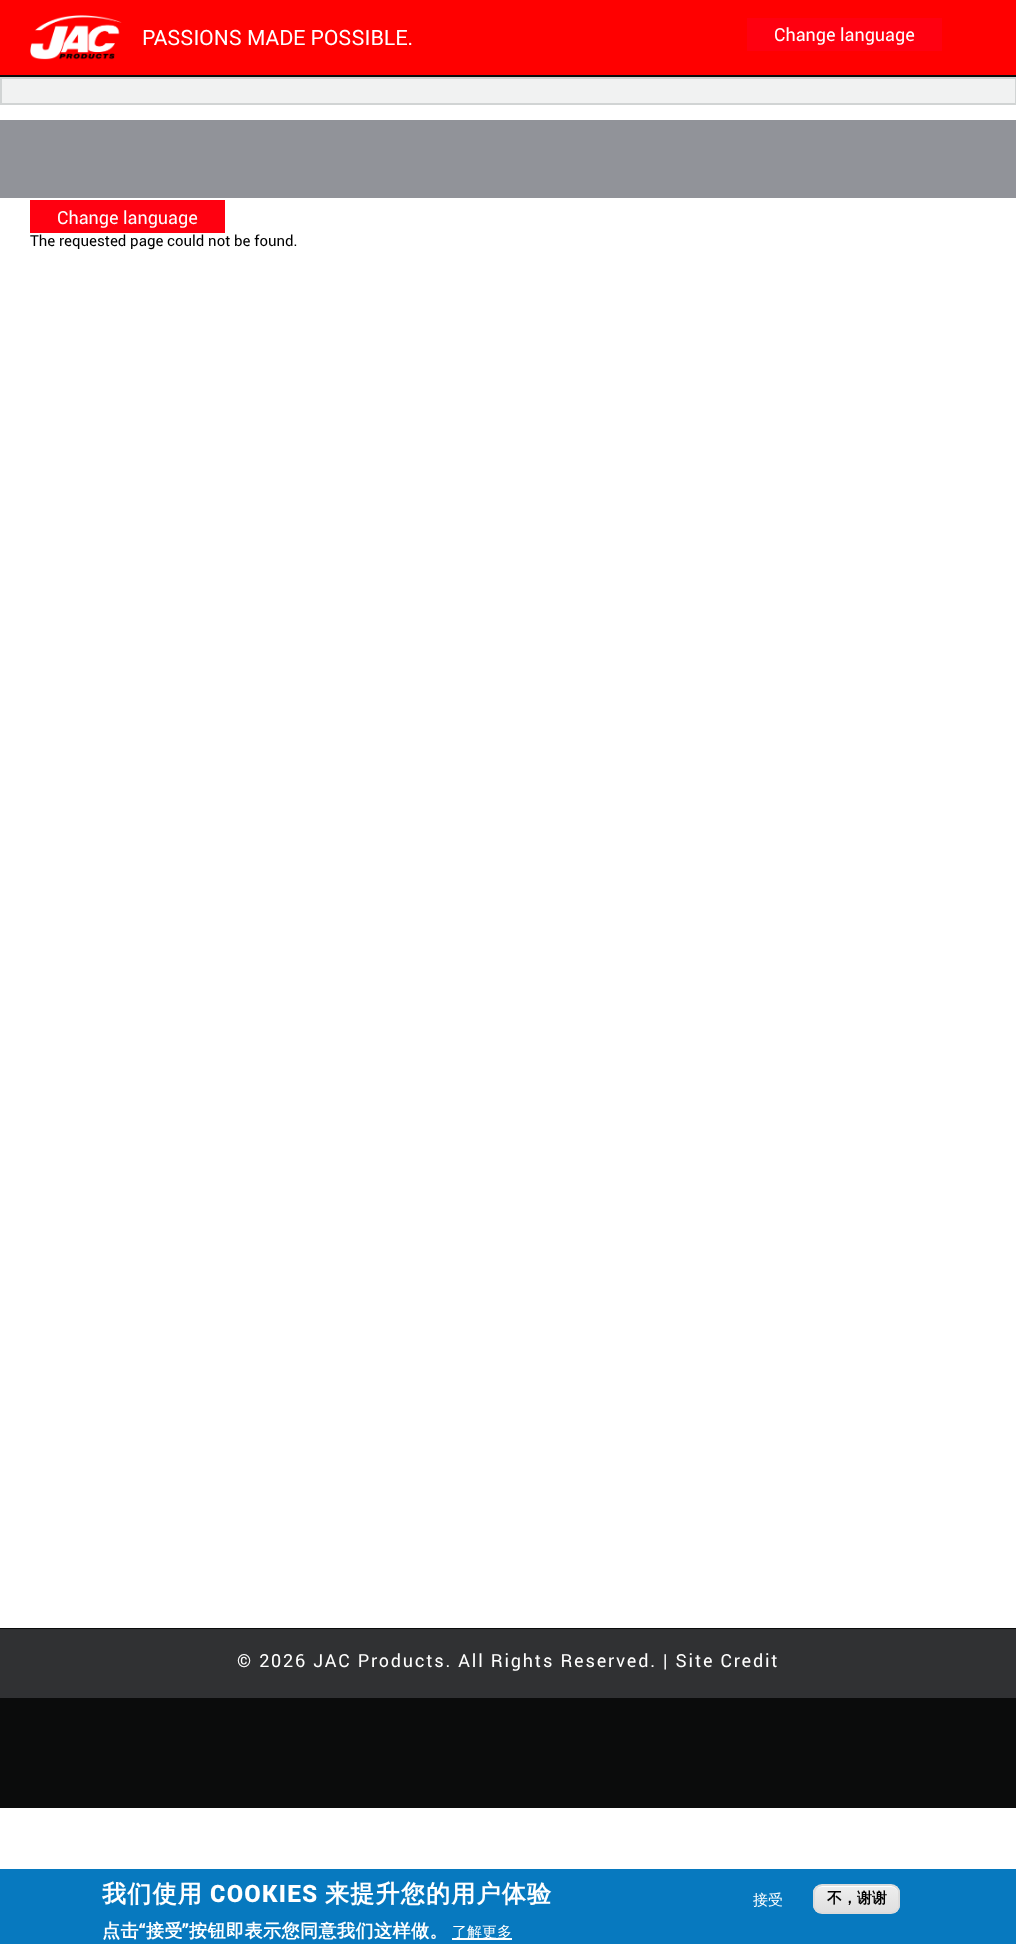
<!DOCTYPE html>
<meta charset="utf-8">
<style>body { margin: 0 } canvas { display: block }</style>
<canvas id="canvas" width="1016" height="1944"></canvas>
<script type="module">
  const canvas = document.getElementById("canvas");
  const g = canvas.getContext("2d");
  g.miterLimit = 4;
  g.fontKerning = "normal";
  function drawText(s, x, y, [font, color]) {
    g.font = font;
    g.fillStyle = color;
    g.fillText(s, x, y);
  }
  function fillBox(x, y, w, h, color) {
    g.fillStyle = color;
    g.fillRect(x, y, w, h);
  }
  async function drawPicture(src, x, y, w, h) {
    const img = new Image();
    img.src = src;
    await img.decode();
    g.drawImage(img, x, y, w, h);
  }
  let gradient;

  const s1 = ["21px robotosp", "#FFFFFF"];
  const s2 = ["18px robotosp", "#FFFFFF"];
  const s3 = ["15px robotosp", "#000000"];
  const s4 = ["bold 24px WenQuanYi Zen Hei", "#FFFFFF"];
  const s5 = ["900 24px Roboto", "#FFFFFF"];
  const s6 = ["bold 18px WenQuanYi Zen Hei", "#FFFFFF"];
  const s7 = ["900 18px Roboto", "#FFFFFF"];
  const s8 = ["500 15px WenQuanYi Zen Hei", "#FFFFFF"];
  const s9 = ["bold 15px WenQuanYi Zen Hei", "#000000"];

  fillBox(0, 0, 1016, 1944, "#FFFFFF");
  fillBox(0, 0, 1016, 75, "#FF0000");
  await drawPicture("pic1.png", 30, 15, 92, 45);
  drawText("PASSIONS MADE POSSIBLE.", 142, 45, s1);
  fillBox(0, 75, 1016, 2, "#0B0C0C");
  fillBox(747, 18, 195, 33, "#FF0010");
  drawText("Change language", 774, 41, s2);
  g.fillStyle = "#F1F2F2";
  g.beginPath();
  g.rect(1, 78, 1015, 26);
  g.fill();
  g.strokeStyle = "#D1D4D4";
  g.lineWidth = 2;
  g.stroke();
  fillBox(0, 120, 1016, 78, "#919399");
  fillBox(30, 200, 195, 33, "#FF0010");
  drawText("Change language", 57, 224, s2);
  drawText("The requested page could not be found.", 30, 246, s3);
  fillBox(0, 1628, 1016, 180, "#0B0C0C");
  fillBox(0, 1629, 1016, 69, "#303133");
  g.letterSpacing = "1.8px";
  drawText("© 2026 JAC Products. All Rights Reserved. | Site Credit", 237, 1667, s2);
  fillBox(0, 1869, 1016, 75, "#0779BF");
  g.letterSpacing = "1.25px";
  drawText("我们使用", 102, 1902, s4);
  drawText("COOKIES", 210, 1902, s5);
  drawText("来提升您的用户体验", 325, 1902, s4);
  g.letterSpacing = "0.5px";
  drawText("点击", 102, 1937, s6);
  drawText("“", 139, 1937, s7);
  drawText("接受", 146, 1937, s6);
  drawText("”", 182, 1937, s7);
  drawText("按钮即表示您同意我们这样做。", 189, 1937, s6);
  fillBox(452, 1938, 60, 2, "#FFFFFF");
  g.letterSpacing = "0px";
  drawText("了解更多", 452, 1937, s8);
  drawText("接受", 753, 1905, s8);
  g.save();
  g.beginPath();
  g.roundRect(813, 1884, 87, 30, 9);
  g.clip();
  gradient = g.createLinearGradient(857, 1886, 857, 1913);
  gradient.addColorStop(0.05, "#EDEDED");
  gradient.addColorStop(1, "#DFDFDF");
  g.fillStyle = gradient;
  g.fillRect(813, 1886, 87, 27);
  g.restore();
  g.beginPath();
  g.moveTo(822, 1887);
  g.lineTo(891, 1887);
  g.bezierCurveTo(895, 1887, 898, 1890, 898, 1894);
  g.lineTo(898, 1906);
  g.lineTo(897, 1910);
  g.bezierCurveTo(898, 1909, 899, 1907, 899, 1905);
  g.lineTo(899, 1894);
  g.bezierCurveTo(899, 1890, 895, 1886, 891, 1886);
  g.lineTo(823, 1886);
  g.bezierCurveTo(821, 1886, 819, 1887, 817, 1888);
  g.bezierCurveTo(819, 1888, 820, 1887, 822, 1887);
  g.closePath();
  g.fill();
  g.beginPath();
  g.roundRect(814, 1885, 85, 28, 8);
  g.strokeStyle = "#DCDCDC";
  g.stroke();
  drawText("不，谢谢", 827, 1903, s9);
</script>
